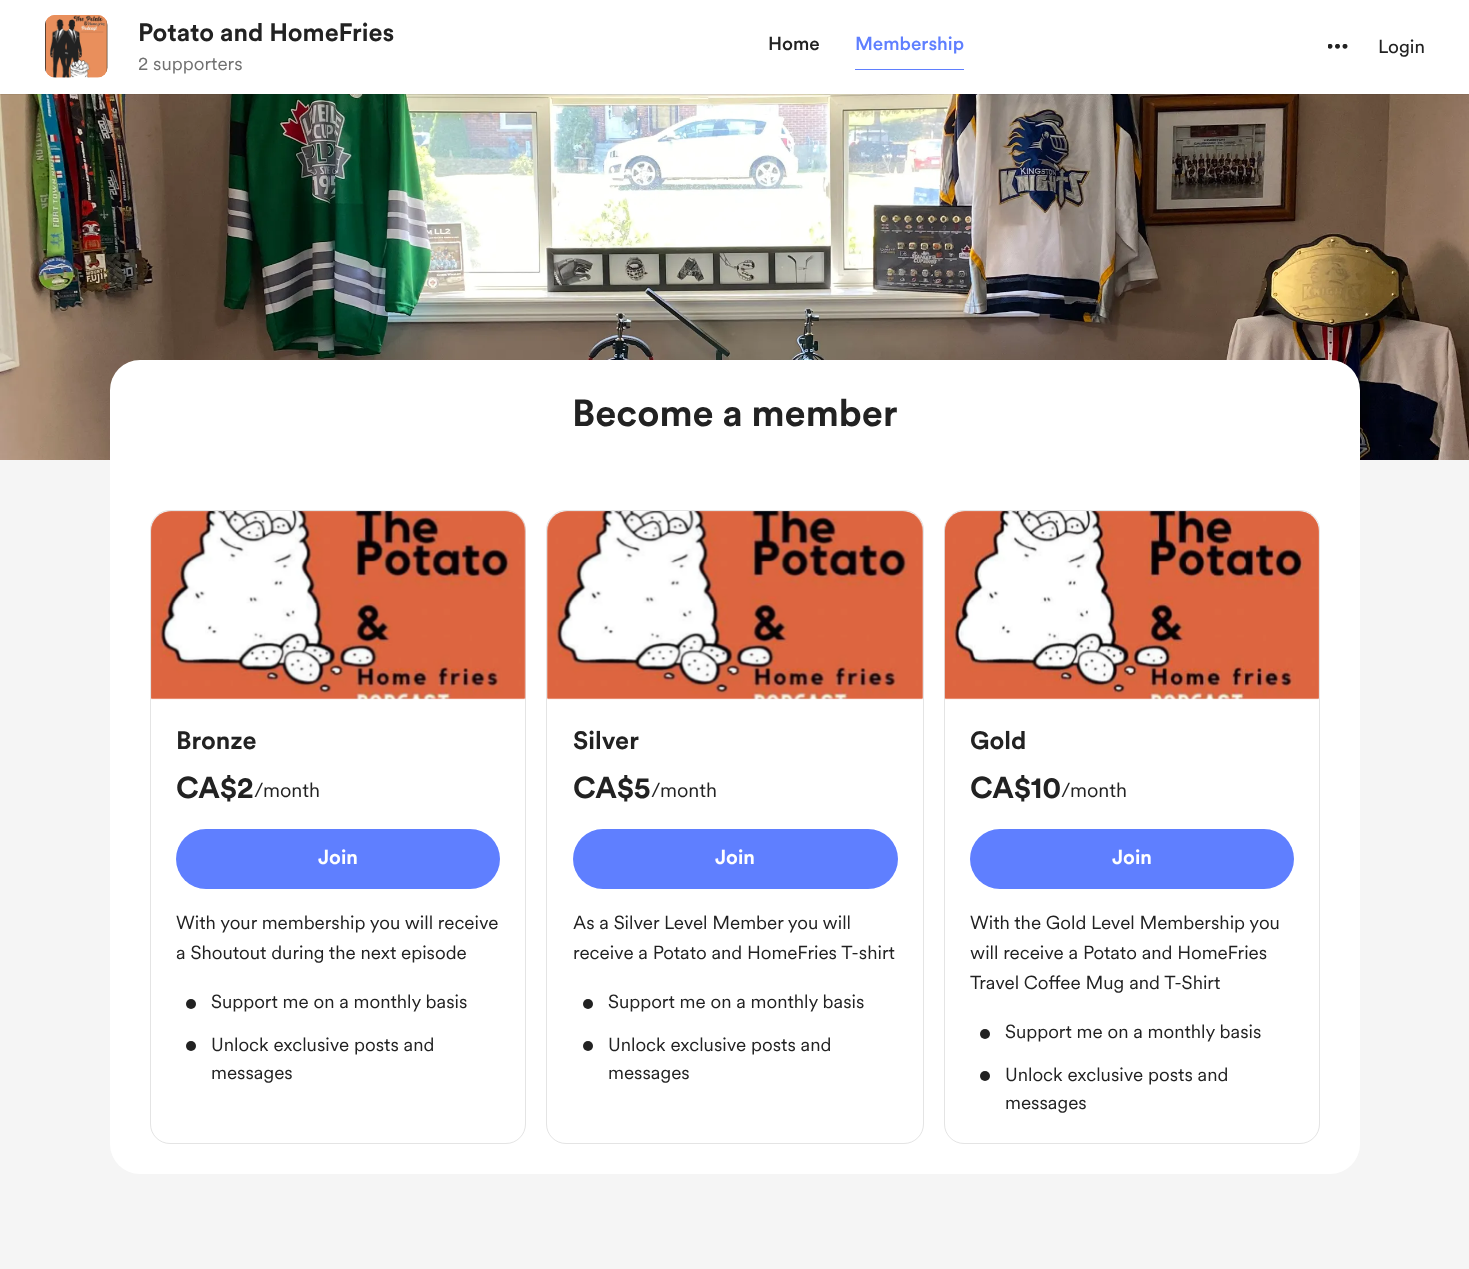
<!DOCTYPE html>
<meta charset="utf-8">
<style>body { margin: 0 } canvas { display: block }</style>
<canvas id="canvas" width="1469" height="1269"></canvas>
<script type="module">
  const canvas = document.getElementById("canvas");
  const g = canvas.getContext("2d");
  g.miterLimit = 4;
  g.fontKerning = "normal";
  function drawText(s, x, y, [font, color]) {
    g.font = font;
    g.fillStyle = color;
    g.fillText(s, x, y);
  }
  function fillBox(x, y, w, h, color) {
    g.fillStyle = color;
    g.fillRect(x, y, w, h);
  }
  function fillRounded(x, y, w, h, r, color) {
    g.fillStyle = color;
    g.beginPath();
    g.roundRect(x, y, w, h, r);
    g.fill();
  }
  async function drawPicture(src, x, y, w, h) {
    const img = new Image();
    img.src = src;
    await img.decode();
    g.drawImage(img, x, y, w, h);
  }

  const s1 = ["bold 25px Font", "#222222"];
  const s2 = ["18.75px Font", "#717171"];
  const s3 = ["500 18.75px Font", "#222222"];
  const s4 = ["500 18.75px Font", "#5F7FFF"];
  const s5 = ["18.75px 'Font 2'", "#222222"];
  const s6 = ["bold 37.5px Font", "#222222"];
  const s7 = ["bold 30px Font", "#222222"];
  const s8 = ["20px Font", "#222222"];
  const s9 = ["bold 20px Font", "#FFFFFF"];
  const s10 = ["18.75px Font", "#222222"];

  fillBox(0, 0, 1469, 1269, "#F5F5F5");
  await drawPicture("pic4.png", 0, 94, 1469, 366);
  g.fillStyle = "rgba(0, 0, 0, 0.06)";
  g.filter = "blur(0.5px)";
  g.beginPath();
  g.rect(0, 1, 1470, 94);
  g.fill();
  g.filter = "none";
  fillBox(0, 0, 1469, 94, "#FFFFFF");
  await drawPicture("pic1.png", 45, 15, 63, 63);
  await drawPicture("pic2.png", 45, 15, 63, 63);
  drawText("Potato and HomeFries", 138, 41, s1);
  drawText("2 supporters", 138, 70, s2);
  drawText("Home", 768, 50, s3);
  drawText("Membership", 855, 50, s4);
  fillBox(855, 69, 109, 1, "#5F7FFF");
  await drawPicture("pic3.png", 1328, 44, 20, 5);
  drawText("Login", 1378, 53, s5);
  fillRounded(110, 360, 1250, 814, 30, "#FFFFFF");
  drawText("Become a member", 572, 426, s6);
  g.beginPath();
  g.roundRect(150.5, 510.5, 375, 633, 19.5);
  g.strokeStyle = "#E4E4E4";
  g.stroke();
  await drawPicture("pic5.png", 151, 511, 375, 188);
  await drawPicture("pic6.png", 151, 511, 375, 189);
  drawText("Bronze", 176, 749, s1);
  drawText("CA$2", 176, 798, s7);
  drawText("/month", 254, 797, s8);
  fillRounded(176, 829, 324, 60, 30, "#5F7FFF");
  drawText("Join", 318, 864, s9);
  drawText("With your membership you will receive", 176, 929, s10);
  drawText("a Shoutout during the next episode", 176, 959, s10);
  g.beginPath();
  g.arc(191, 1004, 5, 0, Math.PI * 2);
  g.fill();
  drawText("Support me on a monthly basis", 211, 1008, s10);
  g.beginPath();
  g.arc(191, 1046, 5, 0, Math.PI * 2);
  g.fill();
  drawText("Unlock exclusive posts and", 211, 1051, s10);
  drawText("messages", 211, 1079, s10);
  g.beginPath();
  g.roundRect(546.5, 510.5, 377, 633, 19.5);
  g.stroke();
  await drawPicture("pic7.png", 547, 511, 376, 188);
  await drawPicture("pic8.png", 547, 511, 376, 189);
  drawText("Silver", 573, 749, s1);
  drawText("CA$5", 573, 798, s7);
  drawText("/month", 651, 797, s8);
  fillRounded(573, 829, 325, 60, 30, "#5F7FFF");
  drawText("Join", 715, 864, s9);
  drawText("As a Silver Level Member you will", 573, 929, s10);
  drawText("receive a Potato and HomeFries T-shirt", 573, 959, s10);
  g.beginPath();
  g.arc(588, 1004, 5, 0, Math.PI * 2);
  g.fill();
  drawText("Support me on a monthly basis", 608, 1008, s10);
  g.beginPath();
  g.arc(588, 1046, 5, 0, Math.PI * 2);
  g.fill();
  drawText("Unlock exclusive posts and", 608, 1051, s10);
  drawText("messages", 608, 1079, s10);
  g.beginPath();
  g.roundRect(944.5, 510.5, 375, 633, 19.5);
  g.stroke();
  await drawPicture("pic9.png", 944, 511, 375, 188);
  await drawPicture("pic10.png", 945, 511, 374, 189);
  drawText("Gold", 970, 749, s1);
  drawText("CA$10", 970, 798, s7);
  drawText("/month", 1061, 797, s8);
  fillRounded(970, 829, 324, 60, 30, "#5F7FFF");
  drawText("Join", 1112, 864, s9);
  drawText("With the Gold Level Membership you", 970, 929, s10);
  drawText("will receive a Potato and HomeFries", 970, 959, s10);
  drawText("Travel Coffee Mug and T-Shirt", 970, 989, s10);
  g.beginPath();
  g.arc(985, 1034, 5, 0, Math.PI * 2);
  g.fill();
  drawText("Support me on a monthly basis", 1005, 1038, s10);
  g.beginPath();
  g.arc(985, 1076, 5, 0, Math.PI * 2);
  g.fill();
  drawText("Unlock exclusive posts and", 1005, 1081, s10);
  drawText("messages", 1005, 1109, s10);
</script>
